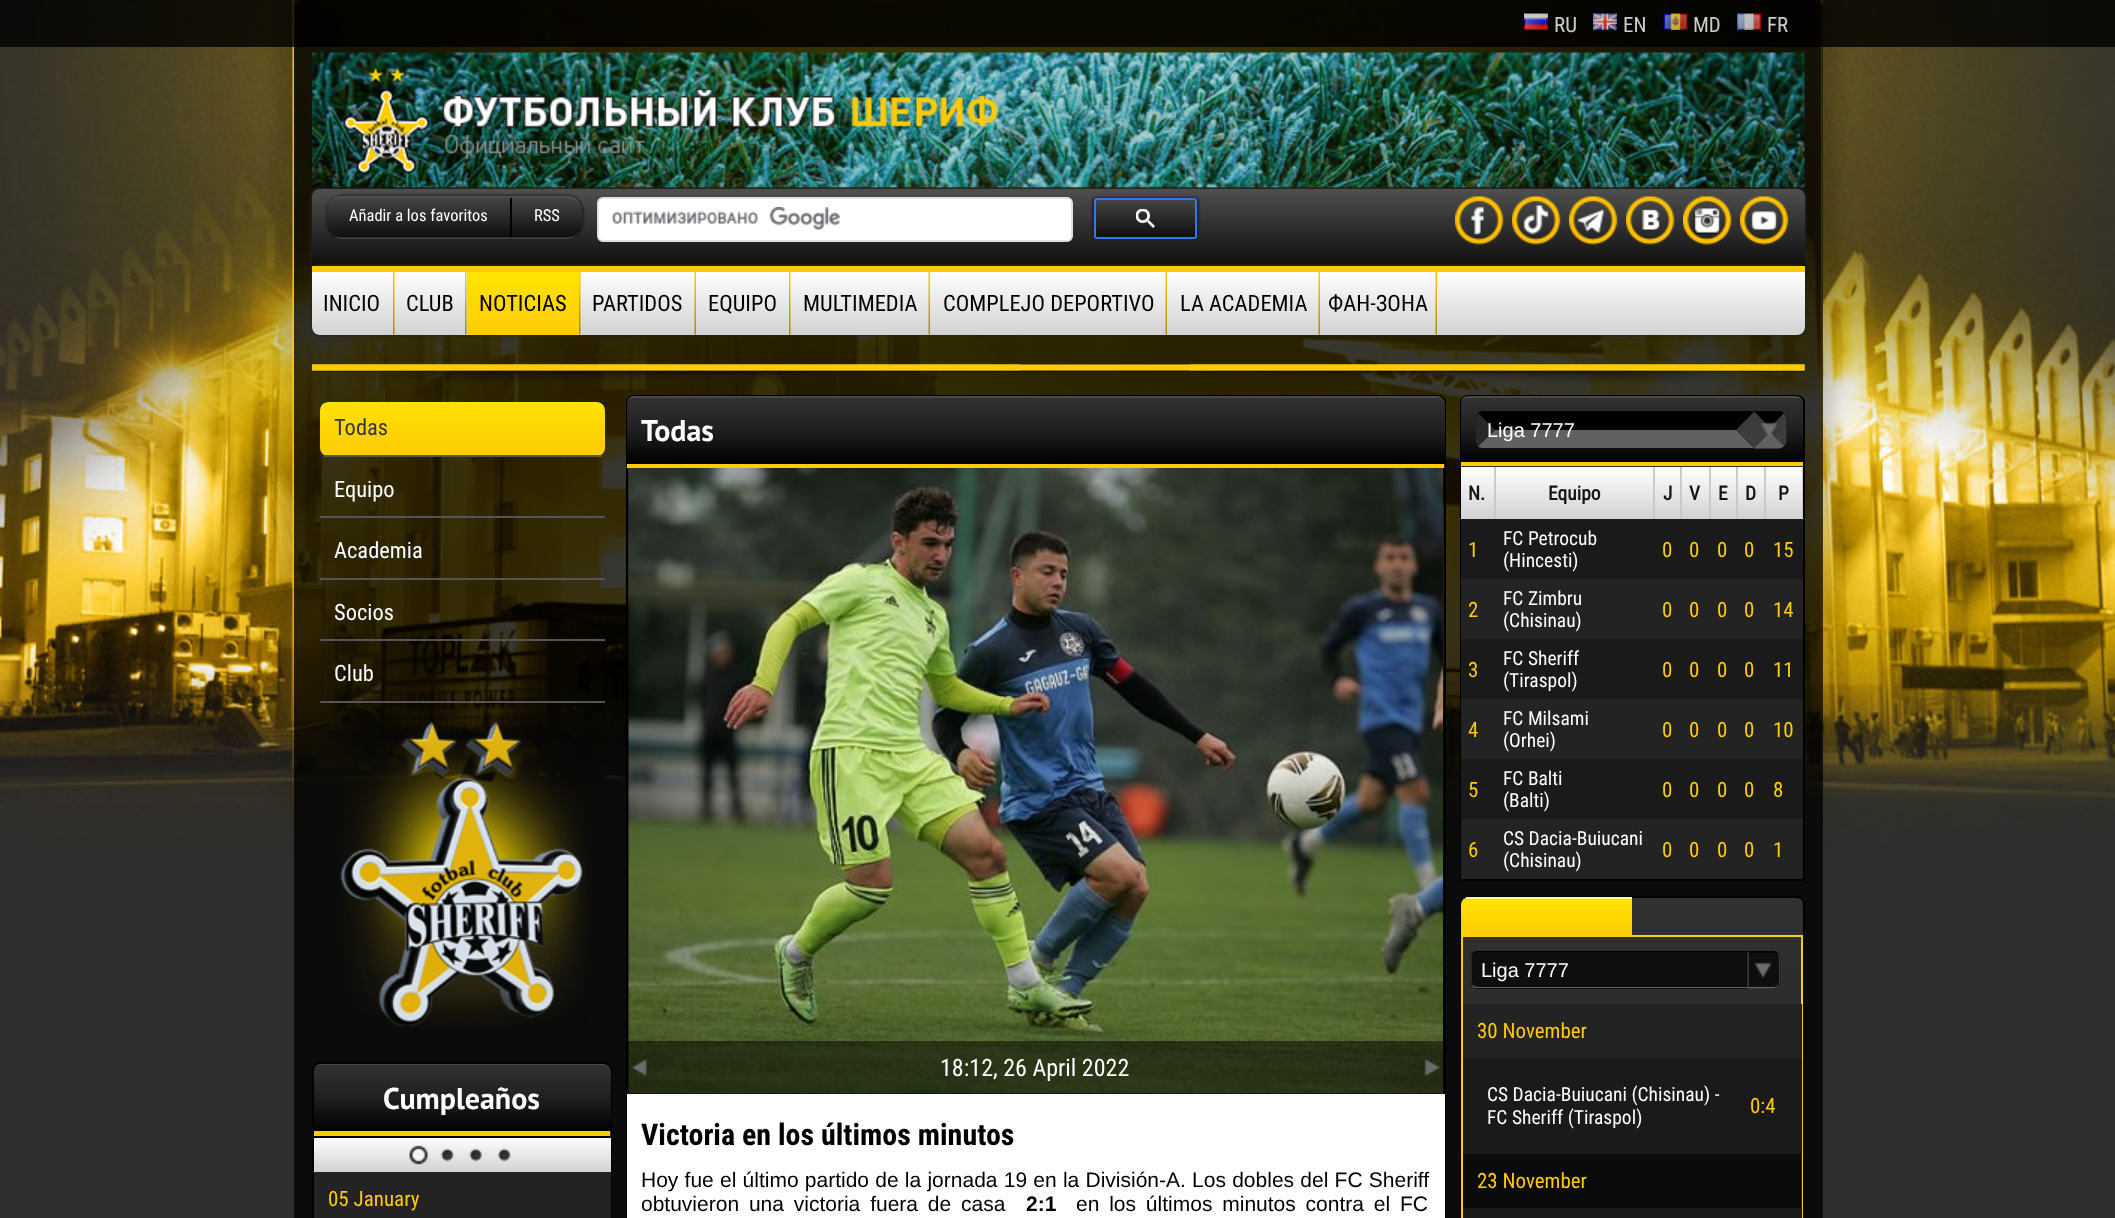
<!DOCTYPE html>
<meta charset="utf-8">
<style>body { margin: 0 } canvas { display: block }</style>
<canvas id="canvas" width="2115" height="1218"></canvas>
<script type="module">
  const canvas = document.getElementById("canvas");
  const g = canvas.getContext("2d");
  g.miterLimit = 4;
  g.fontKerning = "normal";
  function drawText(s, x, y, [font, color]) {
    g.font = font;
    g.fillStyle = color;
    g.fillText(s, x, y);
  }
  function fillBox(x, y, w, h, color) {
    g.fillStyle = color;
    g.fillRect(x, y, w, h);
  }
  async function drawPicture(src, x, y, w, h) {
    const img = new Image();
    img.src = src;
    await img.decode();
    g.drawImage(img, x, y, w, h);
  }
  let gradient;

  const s1 = ["21px Roboto Condensed", "#CDCDCC"];
  const s2 = ["16.5px Roboto Condensed", "#FFFFFF"];
  const s3 = ["22.5px Roboto Condensed", "#000000"];
  const s4 = ["22.5px Roboto Condensed", "#353636"];
  const s5 = ["22.5px Roboto Condensed", "#FFFFFF"];
  const s6 = ["bold 30px PT Sans", "#FFFFFF"];
  const s7 = ["21px Roboto Condensed", "#FFCB08"];
  const s8 = ["24px Roboto Condensed", "#FFFFFF"];
  const s9 = ["bold 30px 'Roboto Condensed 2'", "#000000"];
  const s10 = ["21px Liberation Sans", "#000000"];
  const s11 = ["bold 21px Liberation Sans", "#000000"];
  const s12 = ["20px Liberation Sans", "#FFFFFF"];
  const s13 = ["bold 19.5px Roboto Condensed", "#131414"];
  const s14 = ["19.5px Roboto Condensed", "#FFFFFF"];

  fillBox(0, 0, 2115, 1218, "#2F2F2F");
  await drawPicture("pic1.png", 0, 0, 2115, 856);
  g.fillStyle = "rgba(0, 0, 0, 0.75)";
  g.beginPath();
  g.moveTo(302, 0);
  g.lineTo(1815, 0);
  g.bezierCurveTo(1819.5, 0, 1823, 3.5, 1823, 8);
  g.lineTo(1823, 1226);
  g.lineTo(294, 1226);
  g.lineTo(294, 8);
  g.bezierCurveTo(294, 3.5, 297.5, 0, 302, 0);
  g.closePath();
  g.fill();
  fillBox(0, 0, 2115, 47, "rgba(0, 0, 0, 0.8)");
  g.strokeStyle = "#010100";
  g.lineWidth = 2;
  g.strokeRect(1524, 13, 25, 18);
  await drawPicture("pic2.png", 1524, 13, 24, 17);
  drawText("RU", 1554, 32, s1);
  g.strokeRect(1593, 13, 25, 18);
  await drawPicture("pic3.png", 1593, 13, 24, 17);
  drawText("EN", 1623, 32, s1);
  g.strokeRect(1663, 13, 25, 18);
  await drawPicture("pic4.png", 1663, 13, 25, 17);
  drawText("MD", 1693, 32, s1);
  await drawPicture("pic5.png", 1737, 13, 24, 17);
  drawText("FR", 1767, 32, s1);
  await drawPicture("pic6.png", 312, 52, 1493, 136);
  await drawPicture("pic7.png", 343, 66, 655, 109);
  g.fillStyle = "#222222";
  g.filter = "blur(1px)";
  g.beginPath();
  g.roundRect(311, 188, 1495, 79, 9);
  g.fill();
  g.filter = "none";
  gradient = g.createLinearGradient(1058, 189, 1058, 266);
  gradient.addColorStop(0, "#4F4F4F");
  gradient.addColorStop(1, "#0E0E0E");
  g.fillStyle = gradient;
  g.beginPath();
  g.roundRect(312, 189, 1493, 77, [8, 8, 0, 0]);
  g.fill();
  g.fillStyle = "#222222";
  g.filter = "blur(1px)";
  g.beginPath();
  g.roundRect(326, 195, 258, 45, 17);
  g.fill();
  g.filter = "none";
  g.save();
  g.beginPath();
  g.roundRect(327, 197, 255, 42, 15);
  g.clip();
  gradient = g.createLinearGradient(455, 198, 455, 237);
  gradient.addColorStop(0, "#444444");
  gradient.addColorStop(1, "#0E0E0E");
  g.fillStyle = gradient;
  g.fillRect(327, 198, 255, 39);
  gradient = g.createLinearGradient(455, 237, 455, 276);
  gradient.addColorStop(0, "#444444");
  gradient.addColorStop(1, "#0E0E0E");
  g.fillStyle = gradient;
  g.fillRect(327, 237, 255, 2);
  g.restore();
  g.fillStyle = "#4D4D4C";
  g.beginPath();
  g.moveTo(342, 198);
  g.bezierCurveTo(334, 198, 327, 204, 327, 212);
  g.bezierCurveTo(327, 204, 332, 198, 338, 196);
  g.lineTo(571, 196);
  g.bezierCurveTo(577, 198, 582, 204, 582, 212);
  g.bezierCurveTo(582, 204, 575, 198, 567, 198);
  g.closePath();
  g.fill();
  g.fillStyle = "#2C2B2A";
  g.beginPath();
  g.moveTo(567, 238);
  g.bezierCurveTo(575, 238, 582, 232, 582, 224);
  g.bezierCurveTo(582, 231, 575, 237, 567, 237);
  g.lineTo(342, 237);
  g.bezierCurveTo(334, 237, 327, 231, 327, 224);
  g.bezierCurveTo(327, 232, 334, 238, 342, 238);
  g.closePath();
  g.fill();
  drawText("Añadir a los favoritos", 349, 221, s2);
  fillBox(510, 198, 2, 39, "#000000");
  drawText("RSS", 534, 221, s2);
  g.beginPath();
  g.roundRect(598, 198, 474, 43, 5);
  g.fill();
  g.strokeStyle = "#DFE1E5";
  g.stroke();
  await drawPicture("pic8.png", 612, 207, 228, 23);
  g.fillStyle = "#222222";
  g.filter = "blur(1px)";
  g.beginPath();
  g.roundRect(1092, 197, 107, 43, 5);
  g.fill();
  g.filter = "none";
  g.save();
  g.beginPath();
  g.roundRect(1094, 198, 103, 41, 3);
  g.clip();
  gradient = g.createLinearGradient(1145, 200, 1145, 237);
  gradient.addColorStop(0, "#444444");
  gradient.addColorStop(1, "#0E0E0E");
  g.fillStyle = gradient;
  g.fillRect(1094, 200, 103, 37);
  g.restore();
  g.beginPath();
  g.roundRect(1095, 199, 101, 39, 2);
  g.strokeStyle = "#3079ED";
  g.stroke();
  await drawPicture("pic9.png", 1136, 209, 19, 19);
  await drawPicture("pic10.png", 1455, 196, 49, 49);
  await drawPicture("pic11.png", 1512, 196, 49, 49);
  await drawPicture("pic12.png", 1569, 196, 49, 49);
  await drawPicture("pic13.png", 1626, 196, 49, 49);
  await drawPicture("pic14.png", 1683, 196, 49, 49);
  await drawPicture("pic15.png", 1740, 196, 49, 49);
  g.filter = "blur(1px)";
  g.beginPath();
  g.roundRect(311, 264, 1495, 72, 9);
  g.fill();
  g.filter = "none";
  gradient = g.createLinearGradient(1058, 271, 1058, 335);
  gradient.addColorStop(0, "#FFFFFF");
  gradient.addColorStop(1, "#D2D2D2");
  g.fillStyle = gradient;
  g.beginPath();
  g.roundRect(312, 272, 1493, 63, [0, 0, 8, 8]);
  g.fill();
  fillBox(312, 266, 1493, 6, "#FFCB08");
  await drawPicture("pic16.png", 393, 272, 2, 63);
  drawText("INICIO", 323, 311, s3);
  await drawPicture("pic16.png", 465, 272, 2, 63);
  drawText("CLUB", 406, 311, s3);
  await drawPicture("pic16.png", 579, 272, 2, 63);
  gradient = g.createLinearGradient(523, 272, 523, 335);
  gradient.addColorStop(0, "#FFE400");
  gradient.addColorStop(1, "#FFCC08");
  g.fillStyle = gradient;
  g.fillRect(467, 272, 112, 63);
  drawText("NOTICIAS", 479, 311, s3);
  await drawPicture("pic17.png", 694, 272, 2, 63);
  drawText("PARTIDOS", 592, 311, s3);
  await drawPicture("pic16.png", 789, 272, 2, 63);
  drawText("EQUIPO", 708, 311, s3);
  await drawPicture("pic17.png", 928, 272, 2, 63);
  drawText("MULTIMEDIA", 803, 311, s3);
  await drawPicture("pic17.png", 1165, 272, 2, 63);
  drawText("COMPLEJO DEPORTIVO", 943, 311, s3);
  await drawPicture("pic17.png", 1318, 272, 2, 63);
  drawText("LA ACADEMIA", 1180, 311, s3);
  await drawPicture("pic17.png", 1435, 272, 2, 63);
  drawText("ФАН-ЗОНА", 1328, 311, s3);
  await drawPicture("pic18.png", 312, 364, 1493, 9);
  await drawPicture("pic19.png", 312, 364, 708, 19);
  await drawPicture("pic20.png", 1189, 364, 616, 19);
  await drawPicture("pic21.png", 340, 721, 248, 306);
  g.save();
  g.beginPath();
  g.roundRect(320, 402, 285, 54, 8);
  g.clip();
  gradient = g.createLinearGradient(462, 402, 462, 455);
  gradient.addColorStop(0, "#FFE201");
  gradient.addColorStop(1, "#FFCB08");
  g.fillStyle = gradient;
  g.beginPath();
  g.roundRect(320, 402, 285, 53, [8, 8, 0, 0]);
  g.fill();
  g.restore();
  fillBox(324, 455, 278, 2, "#555555");
  drawText("Todas", 334, 435, s4);
  fillBox(320, 516, 285, 2, "#555555");
  drawText("Equipo", 334, 497, s5);
  fillBox(320, 578, 285, 2, "#555555");
  drawText("Academia", 334, 558, s5);
  fillBox(320, 639, 285, 2, "#555555");
  drawText("Socios", 334, 620, s5);
  fillBox(320, 701, 285, 2, "#555555");
  drawText("Club", 334, 681, s5);
  g.fillStyle = "#080808";
  g.beginPath();
  g.moveTo(320, 1063);
  g.lineTo(604, 1063);
  g.bezierCurveTo(608, 1063, 611, 1066, 611, 1070);
  g.lineTo(611, 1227);
  g.lineTo(313, 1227);
  g.lineTo(313, 1070);
  g.bezierCurveTo(313, 1066, 316, 1063, 320, 1063);
  g.closePath();
  g.fill();
  g.strokeStyle = "#000000";
  g.stroke();
  g.save();
  g.beginPath();
  g.roundRect(314, 1064, 297, 72, [8, 8, 0, 0]);
  g.clip();
  gradient = g.createLinearGradient(462, 1065, 462, 1131);
  gradient.addColorStop(0, "#313131");
  gradient.addColorStop(0.47, "#212121");
  gradient.addColorStop(1, "#000000");
  g.fillStyle = gradient;
  g.fillRect(314, 1065, 297, 66);
  g.restore();
  gradient = g.createLinearGradient(462, 1131, 462, 1197);
  gradient.addColorStop(0, "#313131");
  gradient.addColorStop(0.47, "#212121");
  gradient.addColorStop(1, "#000000");
  g.fillStyle = gradient;
  g.fillRect(610, 1131, 1, 5);
  g.fillStyle = "#4A4943";
  g.beginPath();
  g.moveTo(321, 1064);
  g.lineTo(603, 1064);
  g.bezierCurveTo(607, 1064, 610, 1067, 610, 1071);
  g.bezierCurveTo(610, 1068, 607, 1065, 603, 1065);
  g.lineTo(321, 1065);
  g.bezierCurveTo(317, 1065, 314, 1068, 314, 1071);
  g.bezierCurveTo(314, 1067, 317, 1064, 321, 1064);
  g.closePath();
  g.fill();
  fillBox(314, 1131, 296, 5, "#FFCB08");
  drawText("Cumpleaños", 383, 1109, s6);
  gradient = g.createLinearGradient(462, 1137, 462, 1172);
  gradient.addColorStop(0, "#FFFFFF");
  gradient.addColorStop(1, "#D2D2D2");
  g.fillStyle = gradient;
  g.fillRect(314, 1138, 297, 34);
  fillBox(314, 1136, 297, 2, "#000000");
  await drawPicture("pic22.png", 409, 1145, 19, 20);
  await drawPicture("pic23.png", 440, 1148, 14, 14);
  await drawPicture("pic24.png", 469, 1148, 13, 14);
  await drawPicture("pic23.png", 497, 1148, 14, 14);
  fillBox(314, 1172, 297, 46, "#232323");
  drawText("05 January", 328, 1206, s7);
  g.fillStyle = "rgba(0, 0, 0, 0.3)";
  g.beginPath();
  g.moveTo(634, 396);
  g.lineTo(1438, 396);
  g.bezierCurveTo(1442, 396, 1445, 399, 1445, 403);
  g.lineTo(1445, 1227);
  g.lineTo(627, 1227);
  g.lineTo(627, 403);
  g.bezierCurveTo(627, 399, 630, 396, 634, 396);
  g.closePath();
  g.fill();
  g.stroke();
  g.save();
  g.beginPath();
  g.roundRect(627, 396, 818, 72, [8, 8, 0, 0]);
  g.clip();
  gradient = g.createLinearGradient(1036, 331, 1036, 398);
  gradient.addColorStop(0, "#313131");
  gradient.addColorStop(0.47, "#212121");
  gradient.addColorStop(1, "#000000");
  g.fillStyle = gradient;
  g.fillRect(627, 396, 818, 2);
  gradient = g.createLinearGradient(1036, 397, 1036, 464);
  gradient.addColorStop(0, "#313131");
  gradient.addColorStop(0.47, "#212121");
  gradient.addColorStop(1, "#000000");
  g.fillStyle = gradient;
  g.fillRect(627, 398, 818, 66);
  g.restore();
  gradient = g.createLinearGradient(1036, 463, 1036, 530);
  gradient.addColorStop(0, "#313131");
  gradient.addColorStop(0.47, "#212121");
  gradient.addColorStop(1, "#000000");
  g.fillStyle = gradient;
  g.fillRect(1444, 464, 1, 4);
  g.fillStyle = "#4A4943";
  g.beginPath();
  g.moveTo(634, 396);
  g.lineTo(1437, 396);
  g.bezierCurveTo(1441, 396, 1444, 399, 1444, 404);
  g.bezierCurveTo(1444, 400, 1441, 398, 1437, 398);
  g.lineTo(634, 398);
  g.bezierCurveTo(630, 398, 627, 400, 627, 404);
  g.bezierCurveTo(627, 399, 630, 396, 634, 396);
  g.closePath();
  g.fill();
  fillBox(627, 464, 817, 4, "#FFCB08");
  drawText("Todas", 641, 441, s6);
  await drawPicture("pic25.png", 628, 468, 815, 626);
  fillBox(628, 1041, 816, 53, "rgba(0, 0, 0, 0.5)");
  await drawPicture("pic26.png", 631, 1059, 16, 17);
  drawText("18:12, 26 April 2022", 940, 1076, s8);
  await drawPicture("pic27.png", 1424, 1059, 16, 17);
  fillBox(627, 1094, 818, 124, "#FFFFFF");
  drawText("Victoria en los últimos minutos", 641, 1145, s9);
  g.wordSpacing = "0.4px";
  drawText("Hoy fue el último partido de la jornada 19 en la División-A. Los dobles del FC Sheriff", 641, 1187, s10);
  g.wordSpacing = "4px";
  drawText("obtuvieron una victoria fuera de casa", 641, 1211, s10);
  g.wordSpacing = "0px";
  drawText("2:1", 1026, 1211, s11);
  g.wordSpacing = "4px";
  drawText("en los últimos minutos contra el FC", 1076, 1211, s10);
  g.beginPath();
  g.roundRect(1461, 396, 343, 484, [7, 7, 0, 0]);
  g.stroke();
  g.save();
  g.beginPath();
  g.roundRect(1461, 396, 342, 71, [8, 8, 0, 0]);
  g.clip();
  gradient = g.createLinearGradient(1632, 398, 1632, 462);
  gradient.addColorStop(0, "#313131");
  gradient.addColorStop(0.47, "#212121");
  gradient.addColorStop(1, "#000000");
  g.fillStyle = gradient;
  g.fillRect(1461, 398, 342, 64);
  g.restore();
  gradient = g.createLinearGradient(1632, 462, 1632, 527);
  gradient.addColorStop(0, "#313131");
  gradient.addColorStop(0.47, "#212121");
  gradient.addColorStop(1, "#000000");
  g.fillStyle = gradient;
  g.fillRect(1461, 466, 342, 1);
  g.fillStyle = "#4A4943";
  g.beginPath();
  g.moveTo(1468, 396);
  g.lineTo(1796, 396);
  g.bezierCurveTo(1800, 396, 1803, 399, 1803, 404);
  g.bezierCurveTo(1803, 400, 1800, 398, 1796, 398);
  g.lineTo(1468, 398);
  g.bezierCurveTo(1464, 398, 1461, 400, 1461, 404);
  g.bezierCurveTo(1461, 399, 1464, 396, 1468, 396);
  g.closePath();
  g.fill();
  fillBox(1461, 462, 342, 4, "#FFCB08");
  g.fillStyle = "#0E0E0E";
  g.beginPath();
  g.roundRect(1476, 411, 279, 38, [8, 0, 0, 8]);
  g.fill();
  g.fillStyle = "#010101";
  g.beginPath();
  g.moveTo(1484, 411);
  g.lineTo(1755, 411);
  g.lineTo(1736, 430);
  g.lineTo(1495, 430);
  g.lineTo(1478, 413);
  g.bezierCurveTo(1480, 412, 1481, 411, 1484, 411);
  g.closePath();
  g.fill();
  g.fillStyle = "#3C3C3C";
  g.beginPath();
  g.moveTo(1755, 411);
  g.lineTo(1736, 430);
  g.lineTo(1754.5, 448);
  g.lineTo(1755, 448);
  g.closePath();
  g.fill();
  g.fillStyle = "#616161";
  g.beginPath();
  g.moveTo(1754, 448);
  g.lineTo(1736, 430);
  g.lineTo(1495, 430);
  g.lineTo(1478, 446);
  g.bezierCurveTo(1479, 447, 1480, 448, 1482, 448);
  g.closePath();
  g.fill();
  g.fillStyle = "#292929";
  g.beginPath();
  g.moveTo(1478, 446.5);
  g.lineTo(1495, 430);
  g.lineTo(1478.5, 413.5);
  g.bezierCurveTo(1475, 417.5, 1476, 425.5, 1476, 430.5);
  g.bezierCurveTo(1476, 434.5, 1475, 443, 1478, 446.5);
  g.closePath();
  g.fill();
  g.wordSpacing = "0px";
  drawText("Liga 7777", 1487, 437, s12);
  g.fillStyle = "#0E0E0E";
  g.beginPath();
  g.roundRect(1754, 411, 33, 38, [0, 8, 8, 0]);
  g.fill();
  g.fillStyle = "#010101";
  g.beginPath();
  g.moveTo(1753.5, 411);
  g.lineTo(1779, 411);
  g.bezierCurveTo(1781, 411, 1783, 412, 1784, 413);
  g.lineTo(1770, 427.5);
  g.closePath();
  g.fill();
  g.fillStyle = "#3C3C3C";
  g.beginPath();
  g.moveTo(1784, 413);
  g.lineTo(1770, 427.5);
  g.lineTo(1770, 432);
  g.lineTo(1784, 446);
  g.bezierCurveTo(1785.5, 445, 1786.5, 443, 1786.5, 441);
  g.lineTo(1786.5, 418.5);
  g.bezierCurveTo(1786.5, 416.5, 1785.5, 414.5, 1784, 413);
  g.closePath();
  g.fill();
  g.fillStyle = "#616161";
  g.beginPath();
  g.moveTo(1784, 446);
  g.lineTo(1770, 432);
  g.lineTo(1753.5, 448.5);
  g.lineTo(1779, 448.5);
  g.bezierCurveTo(1781, 448.5, 1783, 447.5, 1784, 446);
  g.closePath();
  g.fill();
  g.fillStyle = "#3C3C3C";
  g.beginPath();
  g.moveTo(1753.5, 411);
  g.lineTo(1770, 427.5);
  g.lineTo(1770, 432);
  g.lineTo(1753.5, 448.5);
  g.closePath();
  g.fill();
  await drawPicture("pic28.png", 1761, 422, 17, 15);
  gradient = g.createLinearGradient(1632, 467, 1632, 519);
  gradient.addColorStop(0, "#FFFFFF");
  gradient.addColorStop(1, "#D2D2D2");
  g.fillStyle = gradient;
  g.fillRect(1461, 467, 341, 52);
  fillBox(1494, 467, 2, 52, "#CACACA");
  drawText("N.", 1468, 500, s13);
  fillBox(1653, 467, 2, 52, "#CACACA");
  drawText("Equipo", 1548, 500, s13);
  fillBox(1680, 467, 2, 52, "#CACACA");
  drawText("J", 1663, 500, s13);
  fillBox(1709, 467, 2, 52, "#CACACA");
  drawText("V", 1689, 500, s13);
  fillBox(1736, 467, 2, 52, "#CACACA");
  drawText("Е", 1718, 500, s13);
  fillBox(1764, 467, 2, 52, "#CACACA");
  drawText("D", 1745, 500, s13);
  fillBox(1802, 467, 1, 52, "#CACACA");
  drawText("P", 1778, 500, s13);
  fillBox(1461, 519, 342, 60, "#1A1A1A");
  drawText("1", 1468, 557, s7);
  drawText("FC Petrocub", 1503, 545, s14);
  drawText("(Hincesti)", 1503, 567, s14);
  drawText("0", 1662, 557, s7);
  drawText("0", 1689, 557, s7);
  drawText("0", 1717, 557, s7);
  drawText("0", 1744, 557, s7);
  drawText("15", 1773, 557, s7);
  fillBox(1461, 579, 342, 60, "#232323");
  drawText("2", 1468, 617, s7);
  drawText("FC Zimbru", 1503, 605, s14);
  drawText("(Chisinau)", 1503, 627, s14);
  drawText("0", 1662, 617, s7);
  drawText("0", 1689, 617, s7);
  drawText("0", 1717, 617, s7);
  drawText("0", 1744, 617, s7);
  drawText("14", 1773, 617, s7);
  fillBox(1461, 639, 342, 60, "#1A1A1A");
  drawText("3", 1468, 677, s7);
  drawText("FC Sheriff", 1503, 665, s14);
  drawText("(Tiraspol)", 1503, 687, s14);
  drawText("0", 1662, 677, s7);
  drawText("0", 1689, 677, s7);
  drawText("0", 1717, 677, s7);
  drawText("0", 1744, 677, s7);
  drawText("11", 1773, 677, s7);
  fillBox(1461, 699, 342, 60, "#232323");
  drawText("4", 1468, 737, s7);
  drawText("FC Milsami", 1503, 725, s14);
  drawText("(Orhei)", 1503, 747, s14);
  drawText("0", 1662, 737, s7);
  drawText("0", 1689, 737, s7);
  drawText("0", 1717, 737, s7);
  drawText("0", 1744, 737, s7);
  drawText("10", 1773, 737, s7);
  fillBox(1461, 759, 342, 60, "#1A1A1A");
  drawText("5", 1468, 797, s7);
  drawText("FC Balti", 1503, 785, s14);
  drawText("(Balti)", 1503, 807, s14);
  drawText("0", 1662, 797, s7);
  drawText("0", 1689, 797, s7);
  drawText("0", 1717, 797, s7);
  drawText("0", 1744, 797, s7);
  drawText("8", 1773, 797, s7);
  fillBox(1461, 819, 342, 60, "#232323");
  drawText("6", 1468, 857, s7);
  drawText("CS Dacia-Buiucani", 1503, 845, s14);
  drawText("(Chisinau)", 1503, 867, s14);
  drawText("0", 1662, 857, s7);
  drawText("0", 1689, 857, s7);
  drawText("0", 1717, 857, s7);
  drawText("0", 1744, 857, s7);
  drawText("1", 1773, 857, s7);
  g.save();
  g.beginPath();
  g.moveTo(1468, 896);
  g.lineTo(1797, 896);
  g.bezierCurveTo(1801.5, 896, 1805, 899.5, 1805, 904);
  g.lineTo(1805, 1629);
  g.lineTo(1460, 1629);
  g.lineTo(1460, 904);
  g.bezierCurveTo(1460, 899.5, 1463.5, 896, 1468, 896);
  g.closePath();
  g.clip();
  gradient = g.createLinearGradient(1632, 897, 1632, 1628);
  gradient.addColorStop(0, "#313131");
  gradient.addColorStop(0.47, "#212121");
  gradient.addColorStop(1, "#000000");
  g.fillStyle = gradient;
  g.fillRect(1460, 897, 345, 107);
  g.restore();
  g.beginPath();
  g.moveTo(1468, 897);
  g.lineTo(1797, 897);
  g.bezierCurveTo(1801, 897, 1804, 900, 1804, 904);
  g.lineTo(1804, 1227);
  g.lineTo(1461, 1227);
  g.lineTo(1461, 904);
  g.bezierCurveTo(1461, 900, 1464, 897, 1468, 897);
  g.closePath();
  g.stroke();
  g.save();
  g.beginPath();
  g.roundRect(1461, 897, 171, 38, [8, 0, 0, 0]);
  g.clip();
  gradient = g.createLinearGradient(1547, 863, 1547, 899);
  gradient.addColorStop(0, "#FFE300");
  gradient.addColorStop(0.47, "#FFD804");
  gradient.addColorStop(1, "#FFCC08");
  g.fillStyle = gradient;
  g.fillRect(1461, 897, 5, 2);
  gradient = g.createLinearGradient(1547, 899, 1547, 935);
  gradient.addColorStop(0, "#FFE300");
  gradient.addColorStop(0.47, "#FFD804");
  gradient.addColorStop(1, "#FFCC08");
  g.fillStyle = gradient;
  g.fillRect(1461, 899, 171, 36);
  g.restore();
  fillBox(1466, 897, 166, 2, "#FFFC93");
  g.strokeStyle = "#FFCC08";
  g.strokeRect(1462, 936, 340, 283);
  g.fillStyle = "#0E0E0E";
  g.beginPath();
  g.roundRect(1470, 951, 279, 38, [8, 0, 0, 8]);
  g.fill();
  g.fillStyle = "#010101";
  g.beginPath();
  g.moveTo(1478, 951);
  g.bezierCurveTo(1475, 951, 1474, 952, 1472, 953);
  g.lineTo(1473, 954);
  g.bezierCurveTo(1474, 953, 1476, 952, 1478, 952);
  g.lineTo(1748, 952);
  g.lineTo(1749, 951);
  g.closePath();
  g.fill();
  g.fillStyle = "#616161";
  g.beginPath();
  g.moveTo(1748, 988);
  g.lineTo(1476, 988);
  g.bezierCurveTo(1474, 988, 1473, 987, 1472, 986);
  g.lineTo(1473, 985);
  g.bezierCurveTo(1474, 986, 1476, 987, 1478, 987);
  g.lineTo(1748, 987);
  g.closePath();
  g.fill();
  g.fillStyle = "#292929";
  g.beginPath();
  g.moveTo(1470, 960);
  g.bezierCurveTo(1470.5, 957.5, 1471, 955, 1472.5, 953.5);
  g.lineTo(1473, 954);
  g.bezierCurveTo(1472.5, 955.5, 1472, 956.5, 1472, 958);
  g.lineTo(1472, 981);
  g.bezierCurveTo(1472, 982.5, 1472.5, 984, 1473.5, 985);
  g.lineTo(1472, 986.5);
  g.bezierCurveTo(1471, 985, 1470.5, 983, 1470, 981);
  g.closePath();
  g.fill();
  drawText("Liga 7777", 1481, 977, s12);
  g.fillStyle = "#0E0E0E";
  g.beginPath();
  g.roundRect(1748, 951, 33, 38, [0, 8, 8, 0]);
  g.fill();
  g.fillStyle = "#010101";
  g.beginPath();
  g.moveTo(1747.5, 951);
  g.lineTo(1749, 952.5);
  g.lineTo(1773, 952.5);
  g.bezierCurveTo(1775, 952.5, 1776, 953, 1777.5, 954);
  g.lineTo(1778, 953);
  g.bezierCurveTo(1777, 952, 1775, 951, 1773, 951);
  g.closePath();
  g.fill();
  g.fillStyle = "#3C3C3C";
  g.beginPath();
  g.moveTo(1780.5, 981);
  g.lineTo(1780.5, 958.5);
  g.bezierCurveTo(1780.5, 956.5, 1779.5, 954.5, 1778, 953);
  g.lineTo(1777.5, 954);
  g.bezierCurveTo(1778.5, 955, 1779, 957, 1779, 958.5);
  g.lineTo(1779, 981);
  g.bezierCurveTo(1779, 983, 1778.5, 984, 1777.5, 985.5);
  g.lineTo(1778, 986);
  g.bezierCurveTo(1779.5, 985, 1780.5, 983, 1780.5, 981);
  g.closePath();
  g.fill();
  g.fillStyle = "#616161";
  g.beginPath();
  g.moveTo(1773, 988.5);
  g.bezierCurveTo(1775, 988.5, 1777, 987.5, 1778, 986);
  g.lineTo(1777.5, 985.5);
  g.bezierCurveTo(1776, 986.5, 1775, 987, 1773, 987);
  g.lineTo(1749, 987);
  g.lineTo(1747.5, 988.5);
  g.closePath();
  g.fill();
  g.fillStyle = "#3C3C3C";
  g.beginPath();
  g.moveTo(1749, 952.5);
  g.lineTo(1747.5, 951);
  g.lineTo(1747.5, 988.5);
  g.lineTo(1749, 987);
  g.closePath();
  g.fill();
  await drawPicture("pic29.png", 1754, 962, 18, 16);
  fillBox(1463, 1004, 339, 54, "#232323");
  drawText("30 November", 1477, 1038, s7);
  fillBox(1463, 1058, 339, 96, "#1A1A1A");
  drawText("CS Dacia-Buiucani (Chisinau) -", 1487, 1101, s14);
  drawText("FC Sheriff (Tiraspol)", 1487, 1124, s14);
  drawText("0:4", 1750, 1113, s7);
  fillBox(1801, 1154, 1, 54, "#232323");
  drawText("23 November", 1477, 1188, s7);
  fillBox(1463, 1208, 339, 10, "#1A1A1A");
</script>
